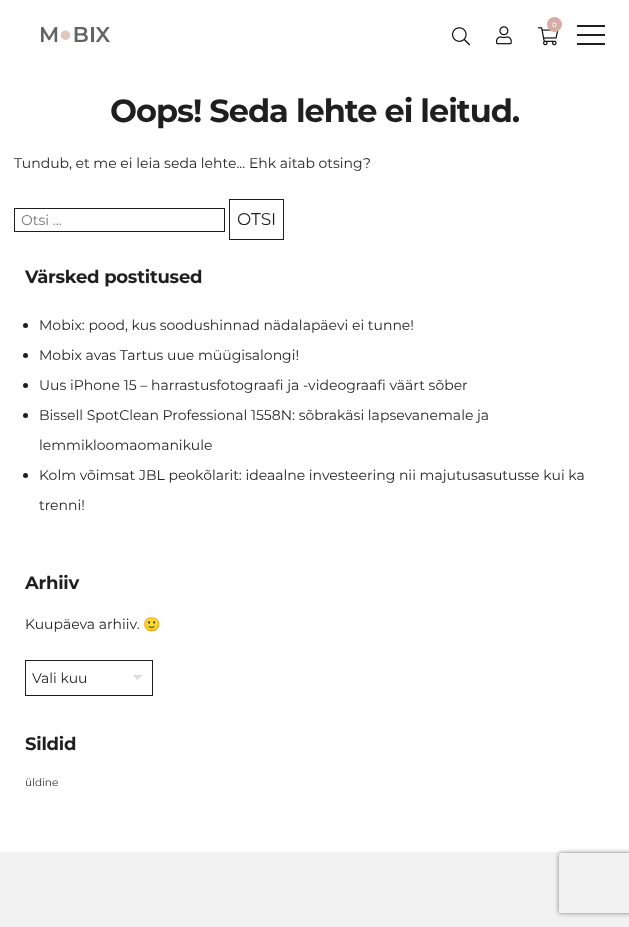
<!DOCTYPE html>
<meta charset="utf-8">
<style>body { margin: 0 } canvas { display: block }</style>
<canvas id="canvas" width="629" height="927"></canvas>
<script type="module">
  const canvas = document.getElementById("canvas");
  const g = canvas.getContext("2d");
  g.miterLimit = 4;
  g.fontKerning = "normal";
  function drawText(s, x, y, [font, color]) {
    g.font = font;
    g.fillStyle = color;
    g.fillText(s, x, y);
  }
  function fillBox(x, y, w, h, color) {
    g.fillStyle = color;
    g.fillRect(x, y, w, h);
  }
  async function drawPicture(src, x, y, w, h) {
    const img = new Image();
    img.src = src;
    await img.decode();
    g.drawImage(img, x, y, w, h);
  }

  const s1 = ["9px Alegreya Sans", "#FFFFFF"];
  const s2 = ["bold 32px Montserrat", "#1F1F1F"];
  const s3 = ["14px Montserrat", "#1F1F1F"];
  const s4 = ["14px Montserrat", "#757575"];
  const s5 = ["17px Montserrat", "#1F1F1F"];
  const s6 = ["bold 18px Montserrat", "#1F1F1F"];
  const s7 = ["14px Noto Color Emoji", "#1F1F1F"];
  const s8 = ["10.5px Montserrat", "#1F1F1F"];

  fillBox(0, 0, 629, 927, "#FFFFFF");
  await drawPicture("pic1.png", 538, 27, 21, 19);
  g.fillStyle = "#D5ADA5";
  g.beginPath();
  g.arc(554.5, 24.5, 7.5, 0, Math.PI * 2);
  g.fill();
  drawText("0", 552, 27, s1);
  await drawPicture("pic2.png", 452, 27, 18, 19);
  await drawPicture("pic3.png", 496, 26, 16, 19);
  await drawPicture("pic4.png", 41, 27, 69, 15);
  fillBox(577, 25, 28, 2, "#1F1F1F");
  fillBox(577, 34, 28, 2, "#1F1F1F");
  fillBox(577, 43, 28, 2, "#1F1F1F");
  g.letterSpacing = "-1px";
  drawText("Oops! Seda lehte ei leitud.", 110, 122, s2);
  g.letterSpacing = "0px";
  drawText("Tundub, et me ei leia seda lehte... Ehk aitab otsing?", 14, 168, s3);
  g.strokeStyle = "#1F1F1F";
  g.strokeRect(14.5, 208.5, 210, 23);
  drawText("Otsi …", 21, 225, s4);
  g.strokeRect(229.5, 199.5, 54, 40);
  drawText("OTSI", 237, 225, s5);
  g.letterSpacing = "-0.25px";
  drawText("Värsked postitused", 25, 283, s6);
  g.beginPath();
  g.arc(25.5, 325.5, 2.5, 0, Math.PI * 2);
  g.fill();
  g.letterSpacing = "0px";
  drawText("Mobix: pood, kus soodushinnad nädalapäevi ei tunne!", 39, 330, s3);
  g.beginPath();
  g.arc(25.5, 355.5, 2.5, 0, Math.PI * 2);
  g.fill();
  drawText("Mobix avas Tartus uue müügisalongi!", 39, 360, s3);
  g.beginPath();
  g.arc(25.5, 385.5, 2.5, 0, Math.PI * 2);
  g.fill();
  drawText("Uus iPhone 15 – harrastusfotograafi ja -videograafi väärt sõber", 39, 390, s3);
  g.beginPath();
  g.arc(25.5, 415.5, 2.5, 0, Math.PI * 2);
  g.fill();
  drawText("Bissell SpotClean Professional 1558N: sõbrakäsi lapsevanemale ja", 39, 420, s3);
  drawText("lemmikloomaomanikule", 39, 450, s3);
  g.beginPath();
  g.arc(25.5, 475.5, 2.5, 0, Math.PI * 2);
  g.fill();
  drawText("Kolm võimsat JBL peokõlarit: ideaalne investeering nii majutusasutusse kui ka", 39, 480, s3);
  drawText("trenni!", 39, 510, s3);
  g.letterSpacing = "-0.25px";
  drawText("Arhiiv", 25, 589, s6);
  g.letterSpacing = "0px";
  drawText("Kuupäeva arhiiv.", 25, 629, s3);
  drawText("🙂", 143, 629, s7);
  await drawPicture("pic5.png", 133, 675, 9, 5);
  g.strokeRect(25.5, 660.5, 127, 35);
  drawText("Vali kuu", 32, 683, s3);
  g.letterSpacing = "-0.25px";
  drawText("Sildid", 25, 750, s6);
  g.letterSpacing = "0px";
  drawText("üldine", 25, 786, s8);
  fillBox(0, 852, 629, 75, "#F2F2F2");
  g.save();
  g.beginPath();
  g.moveTo(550, 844);
  g.lineTo(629, 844);
  g.lineTo(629, 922);
  g.lineTo(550, 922);
  g.closePath();
  g.moveTo(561, 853);
  g.lineTo(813, 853);
  g.bezierCurveTo(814, 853, 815, 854, 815, 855);
  g.lineTo(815, 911);
  g.bezierCurveTo(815, 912, 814, 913, 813, 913);
  g.lineTo(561, 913);
  g.bezierCurveTo(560, 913, 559, 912, 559, 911);
  g.lineTo(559, 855);
  g.bezierCurveTo(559, 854, 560, 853, 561, 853);
  g.closePath();
  g.clip("evenodd");
  g.fillStyle = "#808080";
  g.filter = "blur(2.5px)";
  g.beginPath();
  g.roundRect(559, 853, 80, 60, 2);
  g.fill();
  g.filter = "none";
  g.restore();
</script>
